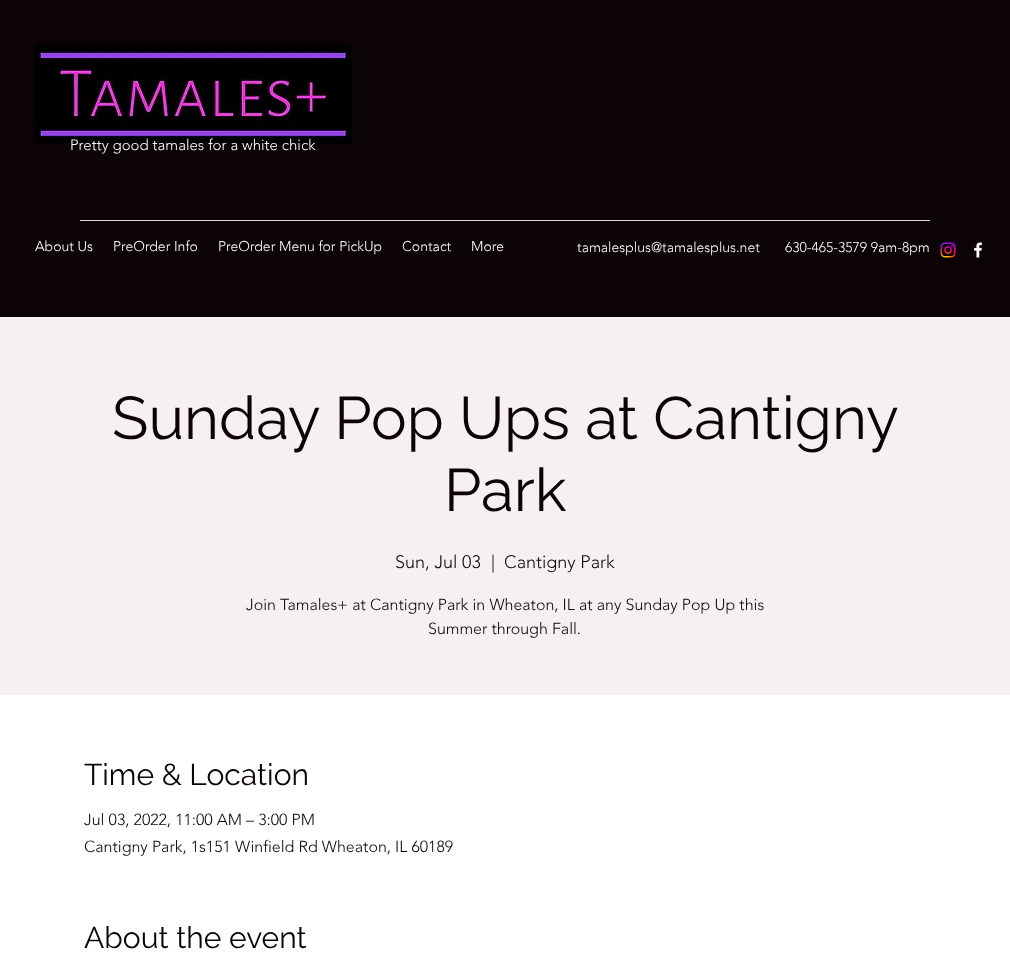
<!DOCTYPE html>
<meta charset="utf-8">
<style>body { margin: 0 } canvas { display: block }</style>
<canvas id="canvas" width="1010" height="977"></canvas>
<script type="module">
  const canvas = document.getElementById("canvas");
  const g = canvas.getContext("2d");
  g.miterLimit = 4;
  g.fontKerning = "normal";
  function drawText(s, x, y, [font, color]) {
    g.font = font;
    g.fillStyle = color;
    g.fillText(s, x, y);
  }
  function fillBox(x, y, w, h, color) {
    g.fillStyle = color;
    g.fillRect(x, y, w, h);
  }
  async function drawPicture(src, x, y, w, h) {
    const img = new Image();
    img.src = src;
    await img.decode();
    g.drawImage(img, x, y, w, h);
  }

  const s1 = ["300 15px 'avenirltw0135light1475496'", "#FFFFFF"];
  const s2 = ["300 14px 'avenirltw0135light1475496'", "#FFFFFF"];
  const s3 = ["60px Raleway", "#0C0404"];
  const s4 = ["300 18px 'avenirltw0135light1475496'", "#0C0404"];
  const s5 = ["300 16px 'avenirltw0135light1475496'", "#0C0404"];
  const s6 = ["30px Raleway", "#0C0404"];

  fillBox(0, 0, 1010, 977, "#FFFFFF");
  fillBox(0, 0, 1010, 317, "#0C0404");
  await drawPicture("pic1.png", 35, 44, 317, 100);
  drawText("Pretty good tamales for a white chick", 70, 150, s1);
  fillBox(80, 220, 850, 1, "#DBD9D9");
  drawText("About Us", 35, 251, s2);
  drawText("PreOrder Info", 113, 251, s2);
  drawText("PreOrder Menu for PickUp", 218, 251, s2);
  drawText("Contact", 402, 251, s2);
  drawText("More", 471, 251, s2);
  drawText("tamalesplus@tamalesplus.net", 577, 252, s2);
  drawText("630-465-3579 9am-8pm", 785, 252, s2);
  await drawPicture("pic2.png", 940, 242, 16, 16);
  await drawPicture("pic3.png", 974, 242, 9, 16);
  fillBox(0, 317, 1010, 378, "#F6F0F4");
  drawText("Sunday Pop Ups at Cantigny", 112, 439, s3);
  drawText("Park", 444, 511, s3);
  drawText("Sun, Jul 03", 395, 568, s4);
  drawText("|", 491, 568, s4);
  drawText("Cantigny Park", 504, 568, s4);
  drawText("Join Tamales+ at Cantigny Park in Wheaton, IL at any Sunday Pop Up this", 246, 610, s5);
  drawText("Summer through Fall.", 428, 634, s5);
  drawText("Time & Location", 84, 785, s6);
  drawText("Jul 03, 2022, 11:00 AM – 3:00 PM", 84, 825, s5);
  drawText("Cantigny Park, 1s151 Winfield Rd Wheaton, IL 60189", 84, 852, s5);
  drawText("About the event", 84, 948, s6);
</script>
